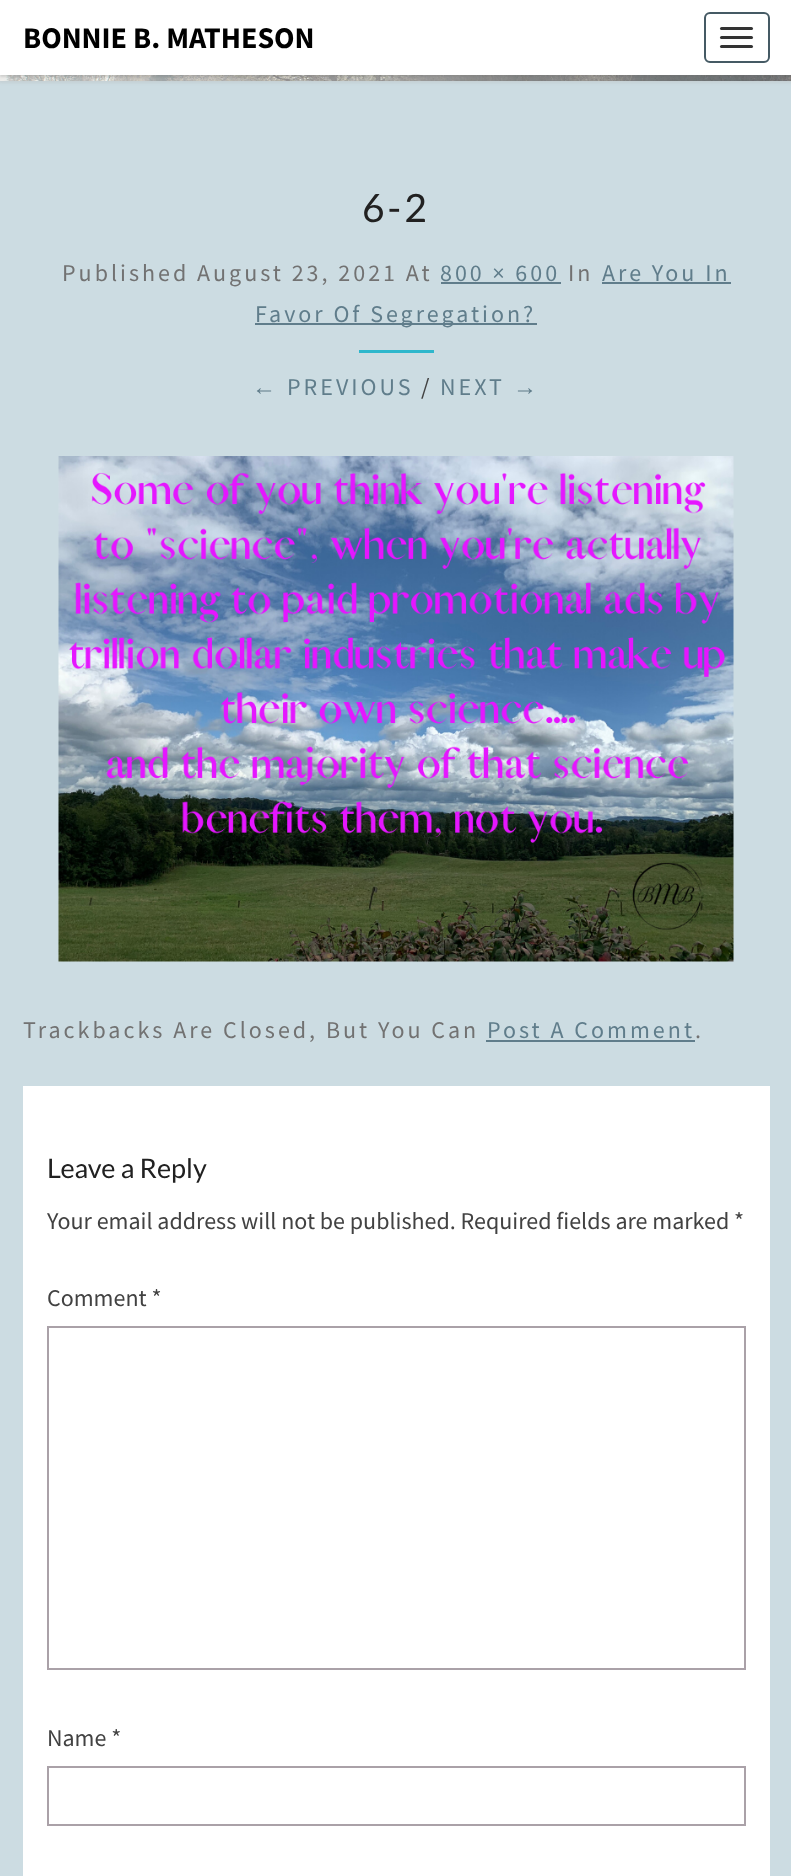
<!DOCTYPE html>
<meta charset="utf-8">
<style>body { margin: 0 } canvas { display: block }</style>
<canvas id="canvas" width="791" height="1876"></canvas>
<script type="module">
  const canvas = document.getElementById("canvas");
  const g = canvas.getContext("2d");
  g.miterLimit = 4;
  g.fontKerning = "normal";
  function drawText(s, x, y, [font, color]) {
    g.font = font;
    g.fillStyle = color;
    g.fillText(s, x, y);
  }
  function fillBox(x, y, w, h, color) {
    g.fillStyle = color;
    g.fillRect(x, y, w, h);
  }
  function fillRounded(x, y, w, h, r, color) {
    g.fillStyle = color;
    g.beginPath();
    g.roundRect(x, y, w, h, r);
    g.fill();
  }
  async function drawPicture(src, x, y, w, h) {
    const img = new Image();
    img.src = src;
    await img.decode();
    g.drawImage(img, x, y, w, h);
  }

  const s1 = ["bold 30px Source Sans Pro", "#000000"];
  const s2 = ["39px Lato", "#212121"];
  const s3 = ["24px Source Sans Pro", "#727272"];
  const s4 = ["24px Source Sans Pro", "#607D8B"];
  const s5 = ["24px Liberation Sans", "#607D8B"];
  const s6 = ["24px Source Sans Pro", "#424242"];
  const s7 = ["27px Lato", "#212121"];

  fillBox(0, 0, 791, 1876, "#CCDCE2");
  g.fillStyle = "rgba(182, 182, 182, 0.3)";
  g.filter = "blur(1.5px)";
  g.beginPath();
  g.rect(-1, -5, 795, 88);
  g.fill();
  g.filter = "none";
  await drawPicture("pic1.png", 0, 75, 791, 6);
  g.fillStyle = "rgba(100, 100, 100, 0.2)";
  g.filter = "blur(1px)";
  g.beginPath();
  g.rect(0, 2, 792, 75);
  g.fill();
  g.filter = "none";
  fillBox(0, 0, 791, 75, "#FFFFFF");
  drawText("BONNIE B. MATHESON", 23, 48, s1);
  g.beginPath();
  g.roundRect(705, 13, 64, 49, 5);
  g.strokeStyle = "#455A64";
  g.lineWidth = 2;
  g.stroke();
  fillRounded(720, 27, 33, 3, 1.5, "#333333");
  fillRounded(720, 36, 33, 3, 1.5, "#333333");
  fillRounded(720, 45, 33, 3, 1.5, "#333333");
  g.letterSpacing = "3px";
  drawText("6-2", 362, 222, s2);
  drawText("Published August 23, 2021 At", 62, 281, s3);
  drawText("800 × 600", 440, 281, s4);
  fillBox(441, 282, 120, 2, "#607D8B");
  drawText("In", 568, 281, s3);
  drawText("Are You In", 602, 281, s4);
  fillBox(602, 282, 129, 2, "#607D8B");
  fillBox(255, 323, 282, 2, "#607D8B");
  drawText("Favor Of Segregation?", 255, 322, s4);
  fillBox(359, 350, 75, 3, "#2EB7CC");
  drawText("←", 252, 395, s5);
  drawText("PREVIOUS", 287, 395, s4);
  drawText("/", 421, 395, s6);
  drawText("NEXT", 440, 395, s4);
  drawText("→", 513, 395, s5);
  await drawPicture("pic2.png", 58, 456, 676, 506);
  drawText("Trackbacks Are Closed, But You Can", 23, 1038, s3);
  drawText("Post A Comment", 487, 1038, s4);
  fillBox(486, 1040, 209, 2, "#607D8B");
  drawText(".", 695, 1038, s3);
  fillBox(23, 1086, 747, 790, "#FFFFFF");
  g.letterSpacing = "0px";
  drawText("Leave a Reply", 47, 1178, s7);
  drawText("Your email address will not be published. Required fields are marked *", 47, 1229, s6);
  drawText("Comment *", 47, 1306, s6);
  g.strokeStyle = "#AAA1A8";
  g.strokeRect(48, 1327, 697, 342);
  drawText("Name *", 47, 1746, s6);
  g.strokeRect(48, 1767, 697, 58);
</script>
